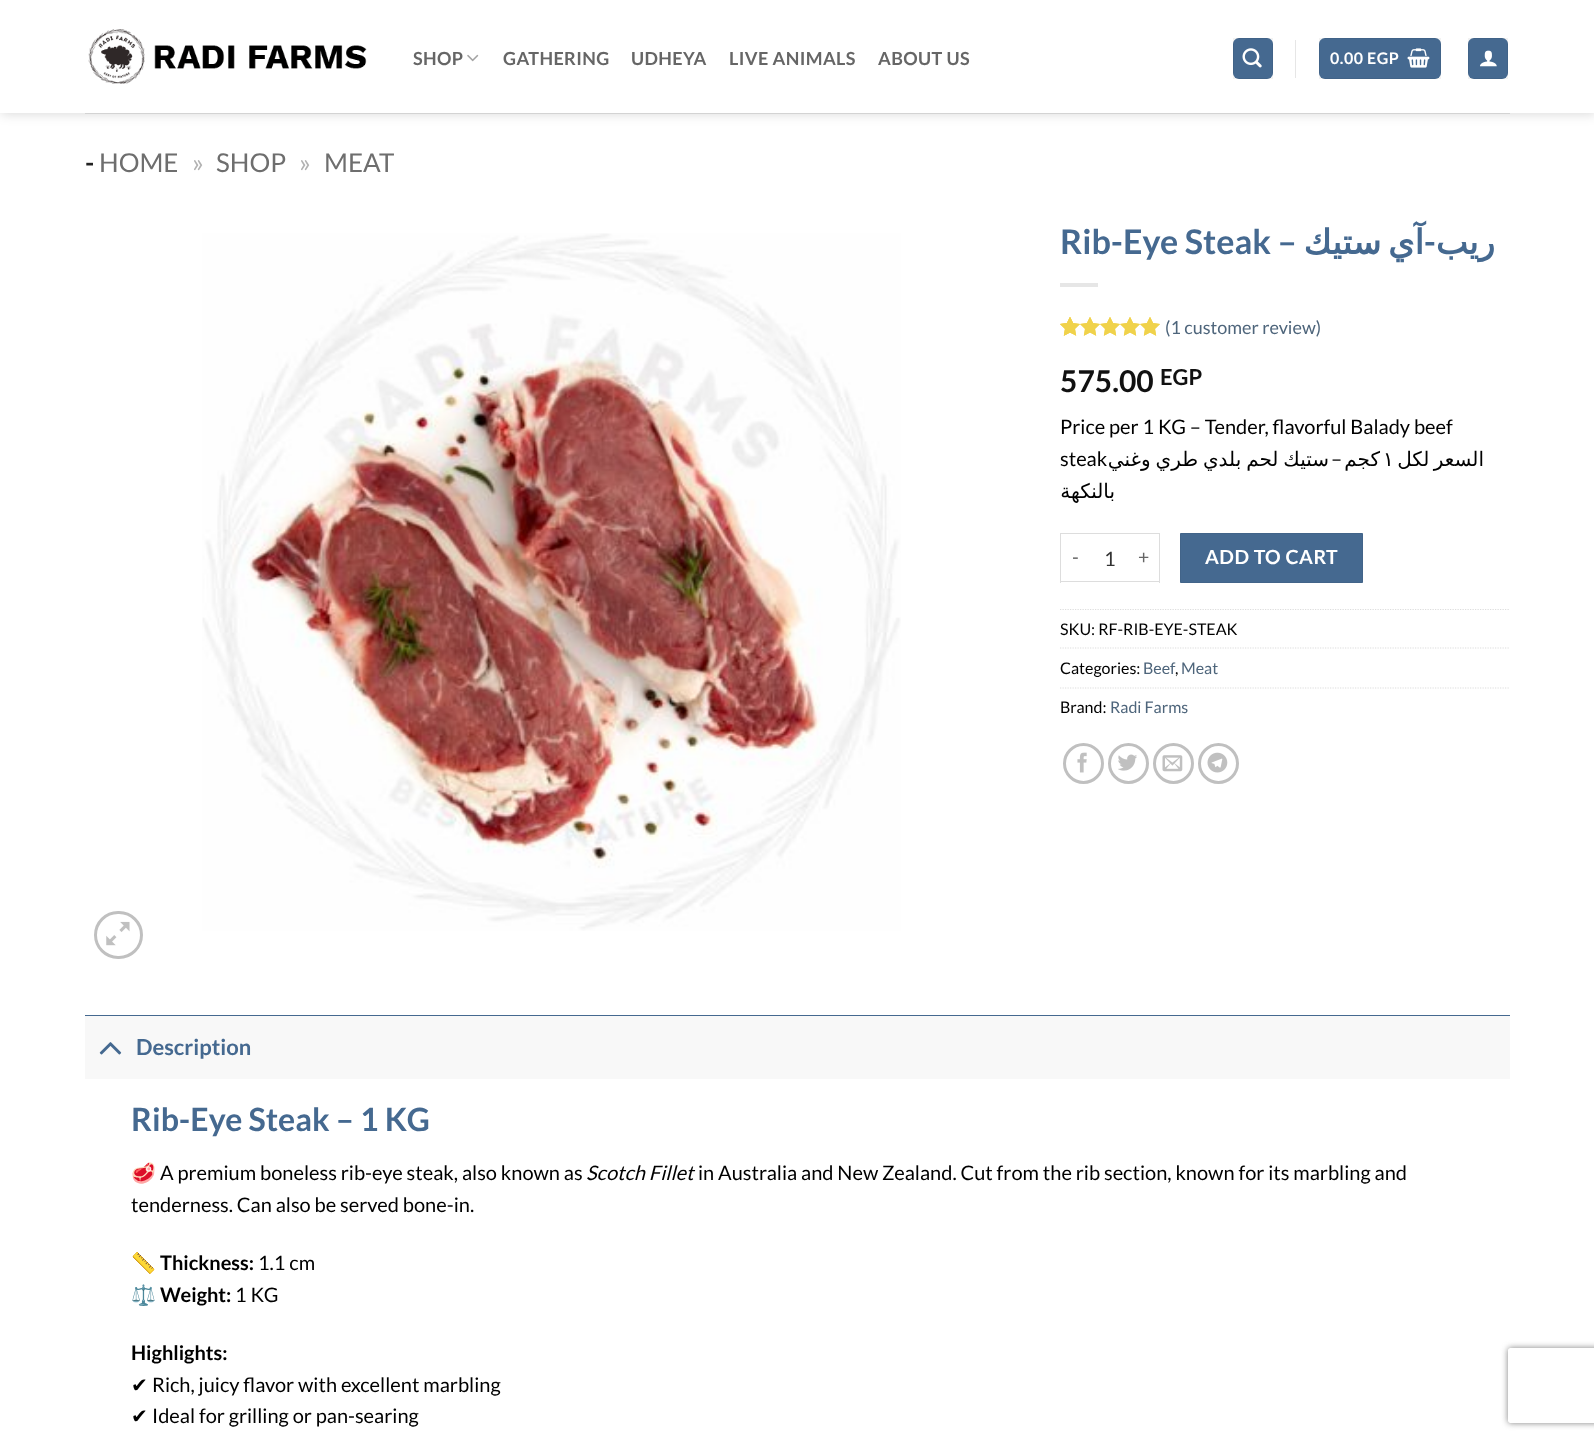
<!DOCTYPE html>
<meta charset="utf-8">
<style>body { margin: 0 } canvas { display: block }</style>
<canvas id="canvas" width="1594" height="1440"></canvas>
<script type="module">
  const canvas = document.getElementById("canvas");
  const g = canvas.getContext("2d");
  g.miterLimit = 4;
  g.fontKerning = "normal";
  function drawText(s, x, y, [font, color]) {
    g.font = font;
    g.fillStyle = color;
    g.fillText(s, x, y);
  }
  function fillBox(x, y, w, h, color) {
    g.fillStyle = color;
    g.fillRect(x, y, w, h);
  }
  function fillRounded(x, y, w, h, r, color) {
    g.fillStyle = color;
    g.beginPath();
    g.roundRect(x, y, w, h, r);
    g.fill();
  }
  async function drawPicture(src, x, y, w, h) {
    const img = new Image();
    img.src = src;
    await img.decode();
    g.drawImage(img, x, y, w, h);
  }

  const s1 = ["bold 18px Lato", "#666666"];
  const s2 = ["bold 16px Lato", "#FFFFFF"];
  const s3 = ["bold 26px Lato", "#222222"];
  const s4 = ["26px Lato", "#6E6E6E"];
  const s5 = ["26px Lato", "#B2B2B2"];
  const s6 = ["bold 34px Lato", "#456990"];
  const s7 = ["bold 34px DejaVu Sans", "#456990"];
  const s8 = ["18px Lato", "#4E657B"];
  const s9 = ["bold 30px Lato", "#111111"];
  const s10 = ["bold 22px Lato", "#111111"];
  const s11 = ["20px Lato", "#000000"];
  const s12 = ["20px DejaVu Sans", "#000000"];
  const s13 = ["19.5px Lato", "#666666"];
  const s14 = ["20px Lato", "#333333"];
  const s15 = ["bold 19.5px Lato", "#FFFFFF"];
  const s16 = ["16px Lato", "#000000"];
  const s17 = ["16px Lato", "#4E657B"];
  const s18 = ["bold 22px Lato", "#456990"];
  const s19 = ["bold 32px Lato", "#456990"];
  const s20 = ["20px Noto Color Emoji", "#000000"];
  const s21 = ["italic 20px Lato", "#000000"];
  const s22 = ["bold 20px Lato", "#000000"];

  fillBox(0, 0, 1594, 1440, "#FFFFFF");
  g.save();
  g.beginPath();
  g.moveTo(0, 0);
  g.lineTo(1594, 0);
  g.lineTo(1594, 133);
  g.lineTo(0, 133);
  g.closePath();
  g.moveTo(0, 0);
  g.lineTo(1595, 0);
  g.lineTo(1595, 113);
  g.lineTo(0, 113);
  g.closePath();
  g.clip("evenodd");
  g.fillStyle = "rgba(0, 0, 0, 0.15)";
  g.filter = "blur(6px)";
  g.beginPath();
  g.rect(1, 1, 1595, 113);
  g.fill();
  g.filter = "none";
  g.restore();
  await drawPicture("pic1.png", 88, 29, 279, 55);
  g.letterSpacing = "0.4px";
  drawText("SHOP", 413, 65, s1);
  await drawPicture("pic2.png", 467, 54, 12, 8);
  drawText("GATHERING", 503, 65, s1);
  drawText("UDHEYA", 631, 65, s1);
  drawText("LIVE ANIMALS", 729, 65, s1);
  drawText("ABOUT US", 878, 65, s1);
  fillRounded(1233, 38, 40, 41, 6, "#456990");
  g.strokeStyle = "rgba(0, 0, 0, 0.05)";
  g.strokeRect(1233.5, 38.5, 39, 40);
  await drawPicture("pic3.png", 1242, 48, 20, 20);
  fillBox(1295, 40, 1, 38, "#E6E6E6");
  fillRounded(1319, 38, 122, 41, 6, "#456990");
  g.strokeRect(1319.5, 38.5, 121, 40);
  g.letterSpacing = "0.5px";
  drawText("0.00 EGP", 1330, 64, s2);
  await drawPicture("pic4.png", 1407, 48, 23, 20);
  fillRounded(1468, 38, 40, 41, 6, "#456990");
  g.strokeRect(1468.5, 38.5, 39, 40);
  await drawPicture("pic5.png", 1480, 50, 17, 17);
  fillBox(85, 113, 1425, 1, "#D3D3D3");
  fillBox(0, 112, 1594, 1, "rgba(255, 255, 255, 0.9)");
  g.letterSpacing = "0px";
  drawText("-", 85, 172, s3);
  drawText("HOME", 99, 172, s4);
  drawText("»", 192, 172, s5);
  drawText("SHOP", 216, 172, s4);
  drawText("»", 299, 172, s5);
  drawText("MEAT", 324, 172, s4);
  g.beginPath();
  g.roundRect(95.5, 912.5, 46, 45, 22.5);
  g.strokeStyle = "#C0C0C0";
  g.lineWidth = 3;
  g.stroke();
  await drawPicture("pic6.png", 106, 921, 24, 25);
  await drawPicture("pic7.png", 202, 233, 699, 698);
  drawText("Rib-Eye Steak –", 1060, 254, s6);
  g.wordSpacing = "-4px";
  g.direction = "rtl";
  drawText("آي ستيك", 1424, 254, s7);
  g.wordSpacing = "0px";
  drawText("-", 1436, 254, s6);
  drawText("ريب", 1495, 254, s7);
  fillBox(1060, 283, 38, 4, "#E6E6E6");
  await drawPicture("pic8.png", 1060, 317, 100, 19);
  await drawPicture("pic9.png", 1060, 317, 100, 19);
  await drawPicture("pic10.png", 1060, 317, 13, 19);
  g.direction = "ltr";
  drawText("(1 customer review)", 1165, 334, s8);
  drawText("575.00", 1060, 392, s9);
  drawText("EGP", 1160, 385, s10);
  drawText("Price per 1 KG – Tender, flavorful Balady beef", 1060, 434, s11);
  drawText("steak", 1060, 466, s11);
  g.wordSpacing = "-1.5px";
  g.direction = "rtl";
  drawText("ستيك لحم بلدي طري وغني", 1329, 466, s12);
  g.wordSpacing = "0px";
  drawText("–", 1342, 466, s11);
  drawText("كجم", 1380, 466, s12);
  g.direction = "ltr";
  drawText("١", 1383, 466, s12);
  g.wordSpacing = "-2px";
  g.direction = "rtl";
  drawText("السعر لكل", 1484, 466, s12);
  g.wordSpacing = "0px";
  drawText("بالنكهة", 1115, 498, s12);
  fillBox(1060, 533, 100, 1, "#DDDDDD");
  fillBox(1060, 581, 70, 1, "#DDDDDD");
  fillBox(1060, 533, 1, 50, "#DDDDDD");
  g.letterSpacing = "0.5px";
  g.direction = "ltr";
  drawText("-", 1072, 564, s13);
  g.letterSpacing = "0px";
  drawText("1", 1104, 566, s14);
  fillBox(1159, 533, 1, 50, "#DDDDDD");
  fillBox(1130, 581, 30, 1, "#DDDDDD");
  g.letterSpacing = "0.5px";
  drawText("+", 1138, 564, s13);
  g.fillStyle = "#456990";
  g.beginPath();
  g.rect(1180.5, 533.5, 182, 49);
  g.fill();
  g.strokeStyle = "#426489";
  g.lineWidth = 1;
  g.stroke();
  drawText("ADD TO CART", 1205, 564, s15);
  g.beginPath();
  g.moveTo(1060, 609.5);
  g.lineTo(1510, 609.5);
  g.strokeStyle = "#DDDDDD";
  g.lineWidth = 1.2;
  g.setLineDash([1.25, 1.25]);
  g.stroke();
  g.letterSpacing = "0px";
  drawText("SKU: RF-RIB-EYE-STEAK", 1060, 635, s16);
  g.beginPath();
  g.moveTo(1060, 648);
  g.lineTo(1510, 648);
  g.stroke();
  drawText("Categories:", 1060, 674, s16);
  drawText("Beef", 1143, 674, s17);
  drawText(",", 1175, 674, s16);
  drawText("Meat", 1181, 674, s17);
  g.beginPath();
  g.moveTo(1060, 688);
  g.lineTo(1510, 688);
  g.stroke();
  drawText("Brand:", 1060, 713, s16);
  drawText("Radi Farms", 1110, 713, s17);
  g.beginPath();
  g.arc(1083.5, 763.5, 19, 0, Math.PI * 2);
  g.strokeStyle = "#C0C0C0";
  g.lineWidth = 3;
  g.setLineDash([]);
  g.stroke();
  await drawPicture("pic11.png", 1077, 752, 10, 21);
  g.beginPath();
  g.arc(1128.5, 763.5, 19, 0, Math.PI * 2);
  g.stroke();
  await drawPicture("pic12.png", 1118, 754, 19, 17);
  g.beginPath();
  g.arc(1173.5, 763.5, 19, 0, Math.PI * 2);
  g.stroke();
  await drawPicture("pic13.png", 1162, 755, 21, 17);
  g.beginPath();
  g.arc(1218.5, 763.5, 19, 0, Math.PI * 2);
  g.stroke();
  await drawPicture("pic14.png", 1207, 752, 21, 21);
  fillBox(85, 1016, 1425, 63, "#F8F8F8");
  fillBox(85, 1015, 1425, 1, "#456990");
  await drawPicture("pic15.png", 99, 1042, 23, 13);
  drawText("Description", 136, 1055, s18);
  drawText("Rib-Eye Steak – 1 KG", 131, 1131, s19);
  drawText("🥩", 131, 1180, s20);
  drawText("A premium boneless rib-eye steak, also known as", 160, 1180, s11);
  drawText("Scotch Fillet", 586, 1180, s21);
  drawText("in Australia and New Zealand. Cut from the rib section, known for its marbling and", 698, 1180, s11);
  drawText("tenderness. Can also be served bone-in.", 131, 1212, s11);
  drawText("📏", 131, 1270, s20);
  drawText("Thickness:", 160, 1270, s22);
  drawText("1.1 cm", 258, 1270, s11);
  drawText("⚖️", 131, 1302, s20);
  drawText("Weight:", 160, 1302, s22);
  drawText("1 KG", 235, 1302, s11);
  drawText("Highlights:", 131, 1360, s22);
  drawText("✔", 131, 1392, s12);
  drawText("Rich, juicy flavor with excellent marbling", 152, 1392, s11);
  drawText("✔", 131, 1423, s12);
  drawText("Ideal for grilling or pan-searing", 152, 1423, s11);
  g.save();
  g.beginPath();
  g.moveTo(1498, 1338);
  g.lineTo(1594, 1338);
  g.lineTo(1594, 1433);
  g.lineTo(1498, 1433);
  g.closePath();
  g.moveTo(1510.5, 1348);
  g.lineTo(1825.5, 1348);
  g.bezierCurveTo(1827, 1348, 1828, 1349, 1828, 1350.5);
  g.lineTo(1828, 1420.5);
  g.bezierCurveTo(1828, 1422, 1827, 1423, 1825.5, 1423);
  g.lineTo(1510.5, 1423);
  g.bezierCurveTo(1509, 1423, 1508, 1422, 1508, 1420.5);
  g.lineTo(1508, 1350.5);
  g.bezierCurveTo(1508, 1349, 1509, 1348, 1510.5, 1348);
  g.closePath();
  g.clip("evenodd");
  g.fillStyle = "#808080";
  g.filter = "blur(3px)";
  g.beginPath();
  g.roundRect(1508, 1348, 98, 75, 2.5);
  g.fill();
  g.filter = "none";
  g.restore();
</script>
